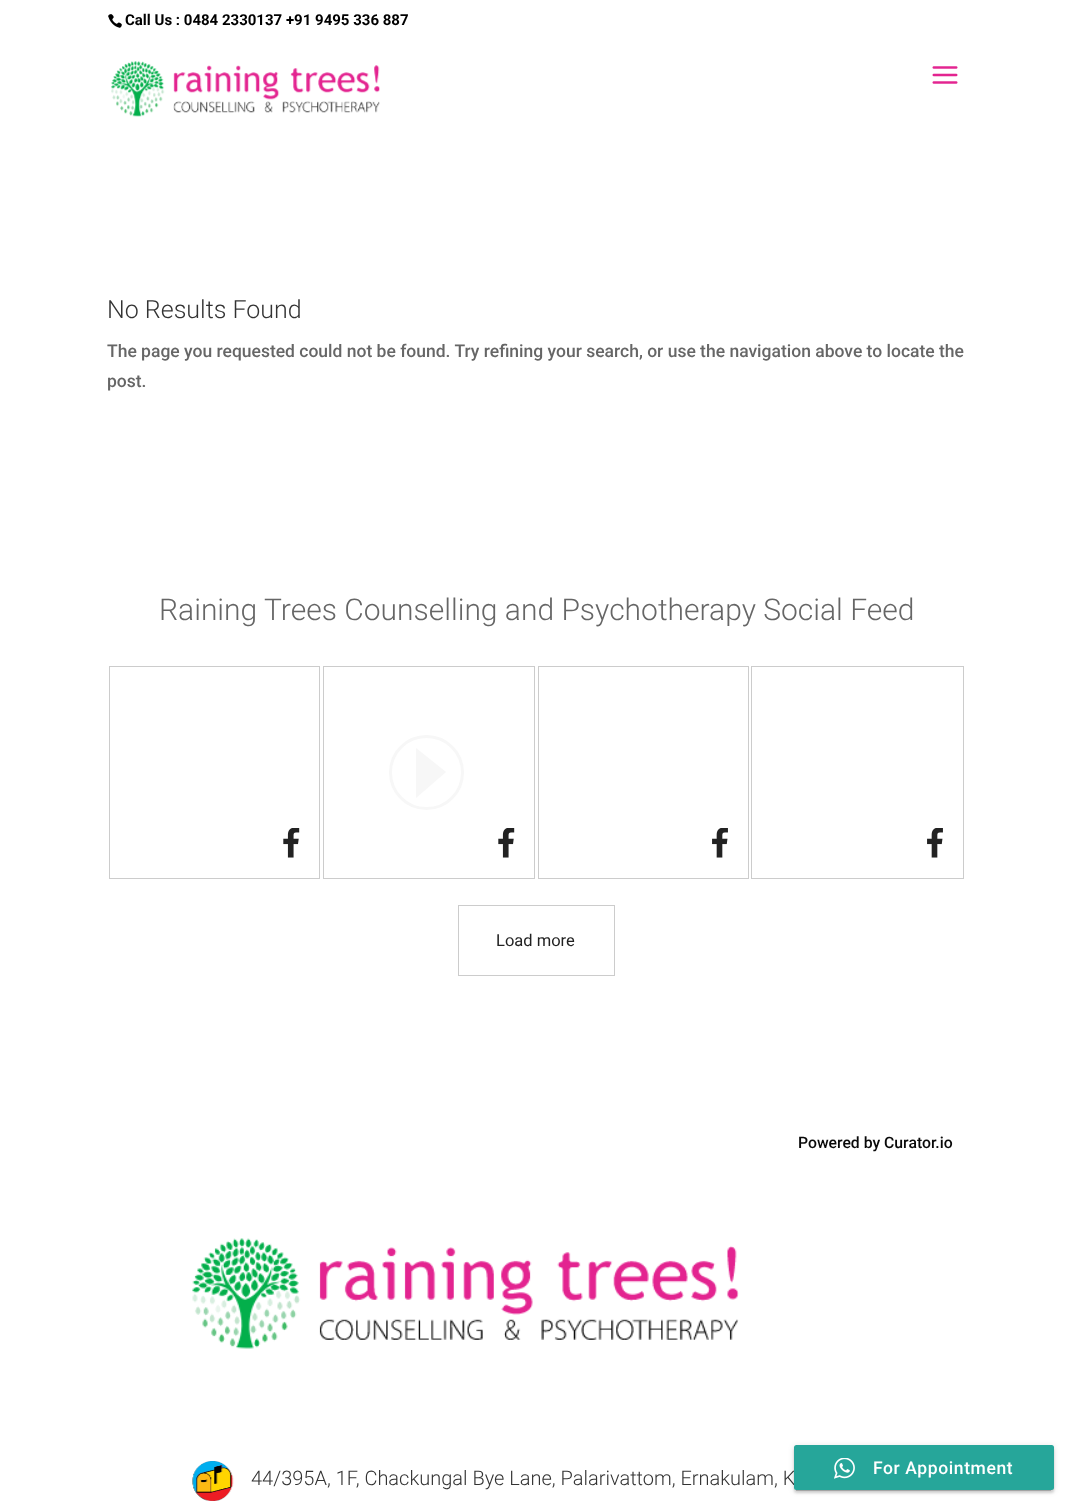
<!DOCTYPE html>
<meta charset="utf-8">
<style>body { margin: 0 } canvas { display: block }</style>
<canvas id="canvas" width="1072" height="1508"></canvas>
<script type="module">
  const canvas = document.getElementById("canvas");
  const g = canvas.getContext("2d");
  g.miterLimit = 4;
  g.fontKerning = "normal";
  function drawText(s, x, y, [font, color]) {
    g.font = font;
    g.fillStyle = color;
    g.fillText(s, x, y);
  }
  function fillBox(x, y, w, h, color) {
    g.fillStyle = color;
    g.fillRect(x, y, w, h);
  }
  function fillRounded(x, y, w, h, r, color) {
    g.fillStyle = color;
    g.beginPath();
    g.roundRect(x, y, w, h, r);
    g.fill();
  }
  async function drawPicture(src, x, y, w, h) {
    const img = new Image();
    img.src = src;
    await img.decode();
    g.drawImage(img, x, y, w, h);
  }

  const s1 = ["bold 15px Roboto", "#000000"];
  const s2 = ["300 25px Roboto", "#333333"];
  const s3 = ["500 17.5px Roboto", "#666666"];
  const s4 = ["300 30px Roboto", "#666666"];
  const s5 = ["16.5px Roboto", "#222222"];
  const s6 = ["500 15.75px Roboto", "#090909"];
  const s7 = ["300 20px Roboto", "#333333"];
  const s8 = ["500 17.5px Roboto", "#FFFFFF"];

  fillBox(0, 0, 1072, 1508, "#FFFFFF");
  await drawPicture("pic1.png", 108, 14, 14, 14);
  drawText("Call Us : 0484 2330137 +91 9495 336 887", 125, 25, s1);
  await drawPicture("pic2.png", 111, 61, 269, 56);
  await drawPicture("pic3.png", 932, 66, 26, 18);
  drawText("No Results Found", 107, 318, s2);
  drawText("The page you requested could not be found. Try refining your search, or use the navigation above to locate the", 107, 357, s3);
  drawText("post.", 107, 387, s3);
  drawText("Raining Trees Counselling and Psychotherapy Social Feed", 159, 620, s4);
  g.strokeStyle = "#CCCCCC";
  g.strokeRect(109.5, 666.5, 210, 212);
  await drawPicture("pic4.png", 283, 828, 17, 30);
  g.strokeRect(323.5, 666.5, 211, 212);
  g.fillStyle = "#F7F7F7";
  g.beginPath();
  g.moveTo(416, 798);
  g.lineTo(416, 748);
  g.lineTo(446, 772);
  g.closePath();
  g.fill();
  g.beginPath();
  g.arc(426.5, 772.5, 36, 0, Math.PI * 2);
  g.strokeStyle = "#F7F7F7";
  g.lineWidth = 3;
  g.stroke();
  await drawPicture("pic4.png", 498, 828, 17, 30);
  g.strokeStyle = "#CCCCCC";
  g.lineWidth = 1;
  g.strokeRect(538.5, 666.5, 210, 212);
  await drawPicture("pic5.png", 712, 828, 16, 30);
  g.strokeRect(751.5, 666.5, 212, 212);
  await drawPicture("pic5.png", 927, 828, 16, 30);
  g.strokeRect(458.5, 905.5, 156, 70);
  drawText("Load more", 496, 946, s5);
  drawText("Powered by Curator.io", 798, 1148, s6);
  await drawPicture("pic6.png", 192, 1238, 547, 111);
  await drawPicture("pic7.png", 192, 1461, 42, 40);
  drawText("44/395A, 1F, Chackungal Bye Lane, Palarivattom, Ernakulam, K", 251, 1485, s7);
  g.fillStyle = "rgba(0, 0, 0, 0.2)";
  g.filter = "blur(0.5px)";
  g.beginPath();
  g.rect(796, 1451, 255, 40);
  g.fill();
  g.filter = "none";
  g.fillStyle = "rgba(0, 0, 0, 0.12)";
  g.filter = "blur(3px)";
  g.beginPath();
  g.roundRect(794, 1446, 260, 45, 2.5);
  g.fill();
  g.filter = "none";
  g.fillStyle = "rgba(0, 0, 0, 0.14)";
  g.filter = "blur(1px)";
  g.beginPath();
  g.roundRect(794, 1448, 260, 45, 2.5);
  g.fill();
  g.filter = "none";
  fillRounded(794, 1445, 260, 45, 2.5, "#26A69A");
  await drawPicture("pic8.png", 834, 1458, 21, 21);
  g.letterSpacing = "0.6px";
  drawText("For Appointment", 873, 1474, s8);
</script>
